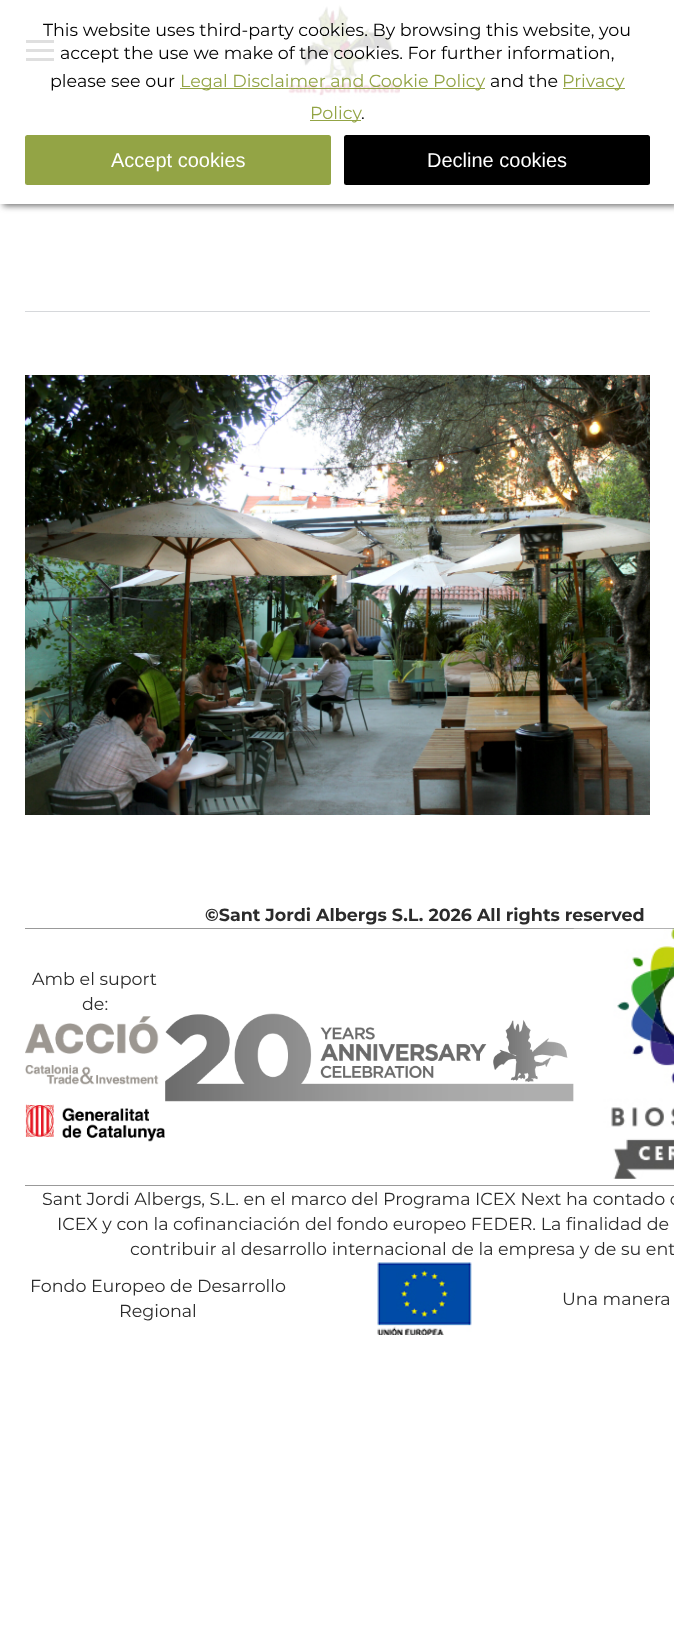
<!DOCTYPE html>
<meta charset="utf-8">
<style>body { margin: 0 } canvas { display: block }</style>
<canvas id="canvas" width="674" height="1645"></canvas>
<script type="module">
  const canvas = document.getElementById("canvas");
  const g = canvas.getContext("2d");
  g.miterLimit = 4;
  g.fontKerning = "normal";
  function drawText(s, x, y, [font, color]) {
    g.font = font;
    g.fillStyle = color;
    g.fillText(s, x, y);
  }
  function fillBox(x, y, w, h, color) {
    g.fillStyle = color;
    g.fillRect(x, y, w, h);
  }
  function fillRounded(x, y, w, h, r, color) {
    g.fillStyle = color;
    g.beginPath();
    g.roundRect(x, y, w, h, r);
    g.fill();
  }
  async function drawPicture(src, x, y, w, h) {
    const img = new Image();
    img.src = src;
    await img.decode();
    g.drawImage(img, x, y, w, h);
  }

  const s1 = ["17.5px Montserrat", "#000000"];
  const s2 = ["17.5px Montserrat", "#93A445"];
  const s3 = ["20px Liberation Sans", "#FFFFFF"];
  const s4 = ["bold 17.5px Montserrat", "#2B2B2B"];
  const s5 = ["17.5px Montserrat", "#2B2B2B"];

  fillBox(0, 0, 674, 1645, "#FFFFFF");
  fillBox(26, 40, 28, 3, "#2B2B2B");
  fillBox(26, 49, 28, 3, "#2B2B2B");
  fillBox(26, 58, 28, 3, "#2B2B2B");
  await drawPicture("pic1.png", 288, 0, 112, 100);
  g.save();
  g.beginPath();
  g.moveTo(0, 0);
  g.lineTo(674, 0);
  g.lineTo(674, 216);
  g.lineTo(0, 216);
  g.closePath();
  g.moveTo(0, 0);
  g.lineTo(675, 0);
  g.lineTo(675, 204);
  g.lineTo(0, 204);
  g.closePath();
  g.clip("evenodd");
  g.fillStyle = "rgba(68, 68, 68, 0.75)";
  g.filter = "blur(3px)";
  g.beginPath();
  g.rect(3, 3, 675, 203);
  g.fill();
  g.filter = "none";
  g.restore();
  fillBox(0, 0, 674, 204, "rgba(255, 255, 255, 0.85)");
  drawText("This website uses third-party cookies. By browsing this website, you", 43, 36, s1);
  drawText("accept the use we make of the cookies. For further information,", 60, 59, s1);
  drawText("please see our", 50, 87, s1);
  fillBox(180, 88, 305, 1, "#93A445");
  drawText("Legal Disclaimer and Cookie Policy", 180, 87, s2);
  drawText("and the", 490, 87, s1);
  fillBox(563, 88, 62, 1, "#93A445");
  drawText("Privacy", 562, 87, s2);
  fillBox(310, 120, 51, 1, "#93A445");
  drawText("Policy", 310, 119, s2);
  drawText(".", 361, 119, s1);
  fillRounded(25, 135, 306, 50, 2.5, "#93A445");
  drawText("Accept cookies", 111, 167, s3);
  fillRounded(344, 135, 306, 50, 2.5, "#000000");
  drawText("Decline cookies", 427, 167, s3);
  fillBox(25, 311, 625, 1, "#D6D8DB");
  await drawPicture("pic2.png", 25, 375, 625, 440);
  drawText("©Sant Jordi Albergs S.L. 2026 All rights reserved", 205, 921, s4);
  fillBox(25, 928, 649, 1, "#999999");
  drawText("Amb el suport", 32, 985, s5);
  drawText("de:", 82, 1010, s5);
  await drawPicture("pic3.png", 25, 1016, 140, 126);
  await drawPicture("pic5.png", 165, 1013, 409, 89);
  await drawPicture("pic4.png", 573, 928, 101, 251);
  fillBox(25, 1185, 649, 1, "#999999");
  drawText("Sant Jordi Albergs, S.L. en el marco del Programa ICEX Next ha contado c", 42, 1205, s5);
  drawText("ICEX y con la cofinanciación del fondo europeo FEDER. La finalidad de", 57, 1230, s5);
  drawText("contribuir al desarrollo internacional de la empresa y de su ent", 130, 1255, s5);
  drawText("Fondo Europeo de Desarrollo", 30, 1292, s5);
  drawText("Regional", 119, 1317, s5);
  await drawPicture("pic6.png", 377, 1262, 95, 73);
  drawText("Una manera", 562, 1305, s5);
</script>
